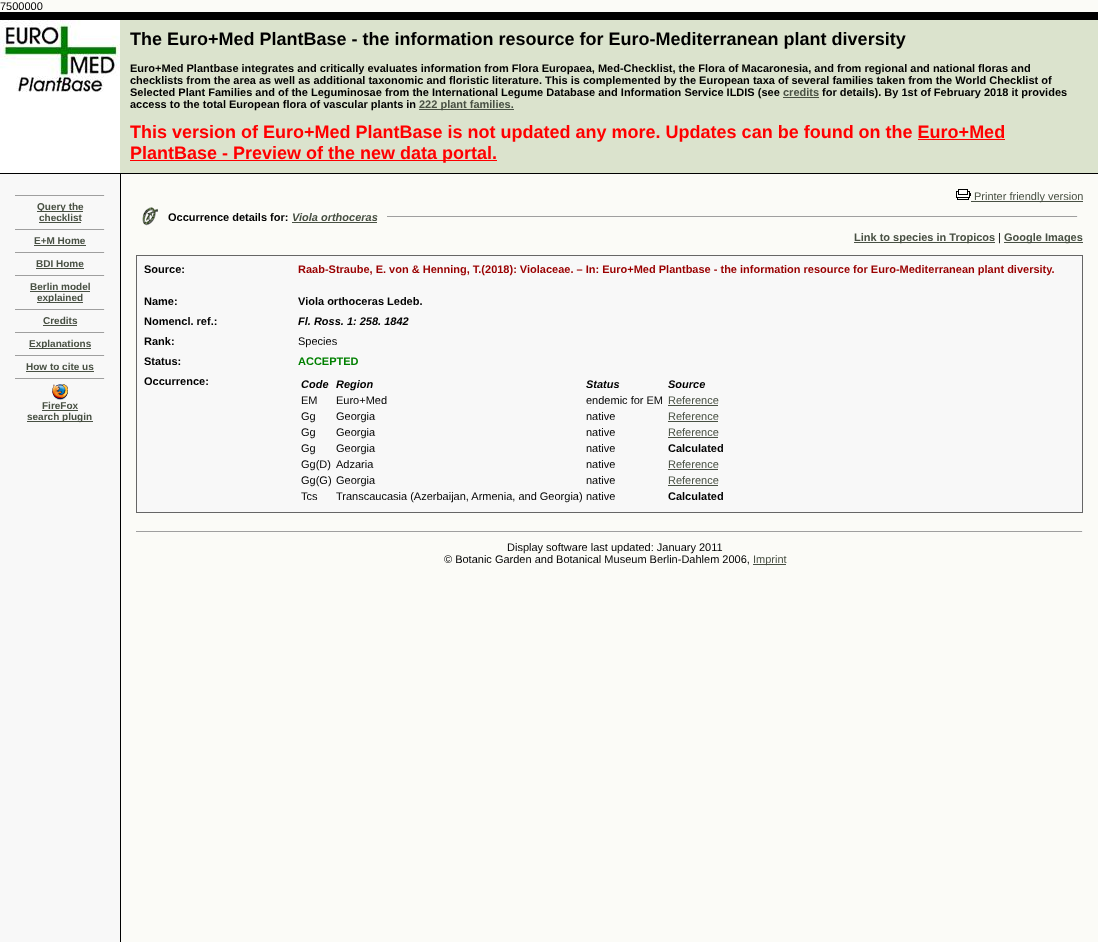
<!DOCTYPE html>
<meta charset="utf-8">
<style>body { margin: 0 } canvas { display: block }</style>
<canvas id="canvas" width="1098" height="942"></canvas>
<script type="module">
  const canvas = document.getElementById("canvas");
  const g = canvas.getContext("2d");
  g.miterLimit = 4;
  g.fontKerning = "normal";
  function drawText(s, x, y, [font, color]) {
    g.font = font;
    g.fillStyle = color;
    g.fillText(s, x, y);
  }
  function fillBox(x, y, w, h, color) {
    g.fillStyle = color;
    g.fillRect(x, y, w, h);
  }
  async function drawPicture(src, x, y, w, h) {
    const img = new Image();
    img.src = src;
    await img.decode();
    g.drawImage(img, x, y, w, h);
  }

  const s1 = ["11px Liberation Sans", "#000000"];
  const s2 = ["bold 18px Liberation Sans", "#000000"];
  const s3 = ["bold 11px Liberation Sans", "#000000"];
  const s4 = ["bold 11px Liberation Sans", "#485043"];
  const s5 = ["bold 18px Liberation Sans", "#FF0000"];
  const s6 = ["bold 10px Liberation Sans", "#485043"];
  const s7 = ["11px Liberation Sans", "#485043"];
  const s8 = ["italic bold 11px Liberation Sans", "#485043"];
  const s9 = ["bold 11px Liberation Sans", "#990000"];
  const s10 = ["italic bold 11px Liberation Sans", "#000000"];
  const s11 = ["bold 11px Liberation Sans", "#008000"];

  fillBox(0, 0, 1098, 942, "#FBFBF7");
  drawText("7500000", 0, 10, s1);
  fillBox(0, 12, 1098, 8, "#000000");
  fillBox(120, 20, 978, 153, "#DBE3CD");
  await drawPicture("pic1.png", 0, 20, 120, 153);
  drawText("The Euro+Med PlantBase - the information resource for Euro-Mediterranean plant diversity", 130, 45, s2);
  drawText("Euro+Med Plantbase integrates and critically evaluates information from Flora Europaea, Med-Checklist, the Flora of Macaronesia, and from regional and national floras and", 130, 72, s3);
  drawText("checklists from the area as well as additional taxonomic and floristic literature. This is complemented by the European taxa of several families taken from the World Checklist of", 130, 84, s3);
  drawText("Selected Plant Families and of the Leguminosae from the International Legume Database and Information Service ILDIS (see", 130, 96, s3);
  drawText("credits", 783, 96, s4);
  fillBox(783, 97, 36, 1, "#485043");
  drawText("for details). By 1st of February 2018 it provides", 822, 96, s3);
  drawText("access to the total European flora of vascular plants in", 130, 108, s3);
  fillBox(419, 109, 95, 1, "#485043");
  drawText("222 plant families.", 419, 108, s4);
  drawText("This version of Euro+Med PlantBase is not updated any more. Updates can be found on the Euro+Med", 130, 138, s5);
  fillBox(918, 139, 87, 1, "#FF0000");
  fillBox(130, 160, 367, 1, "#FF0000");
  drawText("PlantBase - Preview of the new data portal.", 130, 159, s5);
  fillBox(0, 173, 1098, 1, "#000000");
  fillBox(0, 174, 120, 768, "#F8F8F8");
  fillBox(15, 195, 90, 1, "#9F9F9F");
  fillBox(104, 195, 1, 1, "#EEEEEE");
  fillBox(37, 211, 46, 1, "#485043");
  drawText("Query the", 37, 210, s6);
  drawText("checklist", 39, 221, s6);
  fillBox(39, 222, 42, 1, "#485043");
  fillBox(15, 229, 90, 1, "#9F9F9F");
  fillBox(104, 229, 1, 1, "#EEEEEE");
  drawText("E+M Home", 34, 244, s6);
  fillBox(34, 245, 52, 1, "#485043");
  fillBox(15, 252, 90, 1, "#9F9F9F");
  fillBox(104, 252, 1, 1, "#EEEEEE");
  drawText("BDI Home", 36, 267, s6);
  fillBox(36, 268, 48, 1, "#485043");
  fillBox(15, 275, 90, 1, "#9F9F9F");
  fillBox(104, 275, 1, 1, "#EEEEEE");
  drawText("Berlin model", 30, 290, s6);
  fillBox(30, 291, 60, 1, "#485043");
  fillBox(37, 302, 46, 1, "#485043");
  drawText("explained", 37, 301, s6);
  fillBox(15, 309, 90, 1, "#9F9F9F");
  fillBox(104, 309, 1, 1, "#EEEEEE");
  drawText("Credits", 43, 324, s6);
  fillBox(43, 325, 34, 1, "#485043");
  fillBox(15, 332, 90, 1, "#9F9F9F");
  fillBox(104, 332, 1, 1, "#EEEEEE");
  fillBox(29, 348, 62, 1, "#485043");
  drawText("Explanations", 29, 347, s6);
  fillBox(15, 355, 90, 1, "#9F9F9F");
  fillBox(104, 355, 1, 1, "#EEEEEE");
  drawText("How to cite us", 26, 370, s6);
  fillBox(26, 371, 68, 1, "#485043");
  fillBox(15, 378, 90, 1, "#9F9F9F");
  fillBox(104, 378, 1, 1, "#EEEEEE");
  await drawPicture("pic2.png", 52, 384, 16, 16);
  drawText("FireFox", 42, 409, s6);
  fillBox(42, 410, 36, 1, "#485043");
  fillBox(27, 421, 66, 1, "#485043");
  drawText("search plugin", 27, 420, s6);
  fillBox(120, 174, 1, 768, "#000000");
  await drawPicture("pic3.png", 956, 189, 15, 11);
  fillBox(971, 201, 112, 1, "#485043");
  drawText("Printer friendly version", 974, 200, s7);
  await drawPicture("pic4.png", 142, 207, 16, 19);
  drawText("Occurrence details for:", 168, 221, s3);
  drawText("Viola orthoceras", 292, 221, s8);
  fillBox(292, 222, 85, 1, "#485043");
  fillBox(387, 216, 691, 1, "#9F9F9F");
  fillBox(1077, 216, 1, 1, "#EEEEEE");
  fillBox(854, 242, 141, 1, "#485043");
  drawText("Link to species in Tropicos", 854, 241, s4);
  drawText("|", 998, 241, s1);
  fillBox(1004, 242, 79, 1, "#485043");
  drawText("Google Images", 1004, 241, s4);
  fillBox(136, 255, 947, 1, "#666666");
  fillBox(1082, 255, 1, 258, "#666666");
  fillBox(136, 512, 947, 1, "#666666");
  fillBox(136, 255, 1, 258, "#666666");
  fillBox(137, 256, 945, 256, "#F8F8F8");
  drawText("Source:", 144, 273, s3);
  drawText("Raab-Straube, E. von & Henning, T.(2018): Violaceae. – In: Euro+Med Plantbase - the information resource for Euro-Mediterranean plant diversity.", 298, 273, s9);
  drawText("Name:", 144, 305, s3);
  drawText("Viola orthoceras Ledeb.", 298, 305, s3);
  drawText("Nomencl. ref.:", 144, 325, s3);
  drawText("Fl. Ross. 1: 258. 1842", 298, 325, s10);
  drawText("Rank:", 144, 345, s3);
  drawText("Species", 298, 345, s1);
  drawText("Status:", 144, 365, s3);
  drawText("ACCEPTED", 298, 365, s11);
  drawText("Occurrence:", 144, 385, s3);
  drawText("Code", 301, 388, s10);
  drawText("Region", 336, 388, s10);
  drawText("Status", 586, 388, s10);
  drawText("Source", 668, 388, s10);
  drawText("EM", 301, 404, s1);
  drawText("Euro+Med", 336, 404, s1);
  drawText("endemic for EM", 586, 404, s1);
  drawText("Reference", 668, 404, s7);
  fillBox(668, 405, 50, 1, "#485043");
  drawText("Gg", 301, 420, s1);
  drawText("Georgia", 336, 420, s1);
  drawText("native", 586, 420, s1);
  drawText("Reference", 668, 420, s7);
  fillBox(668, 421, 50, 1, "#485043");
  drawText("Gg", 301, 436, s1);
  drawText("Georgia", 336, 436, s1);
  drawText("native", 586, 436, s1);
  drawText("Reference", 668, 436, s7);
  fillBox(668, 437, 50, 1, "#485043");
  drawText("Gg", 301, 452, s1);
  drawText("Georgia", 336, 452, s1);
  drawText("native", 586, 452, s1);
  drawText("Calculated", 668, 452, s3);
  drawText("Gg(D)", 301, 468, s1);
  drawText("Adzaria", 336, 468, s1);
  drawText("native", 586, 468, s1);
  drawText("Reference", 668, 468, s7);
  fillBox(668, 469, 50, 1, "#485043");
  drawText("Gg(G)", 301, 484, s1);
  drawText("Georgia", 336, 484, s1);
  drawText("native", 586, 484, s1);
  drawText("Reference", 668, 484, s7);
  fillBox(668, 485, 50, 1, "#485043");
  drawText("Tcs", 301, 500, s1);
  drawText("Transcaucasia (Azerbaijan, Armenia, and Georgia)", 336, 500, s1);
  drawText("native", 586, 500, s1);
  drawText("Calculated", 668, 500, s3);
  fillBox(136, 531, 947, 1, "#9F9F9F");
  fillBox(1082, 531, 1, 1, "#EEEEEE");
  drawText("Display software last updated: January 2011", 507, 551, s1);
  drawText("© Botanic Garden and Botanical Museum Berlin-Dahlem 2006,", 444, 563, s1);
  fillBox(753, 564, 33, 1, "#485043");
  drawText("Imprint", 753, 563, s7);
</script>
